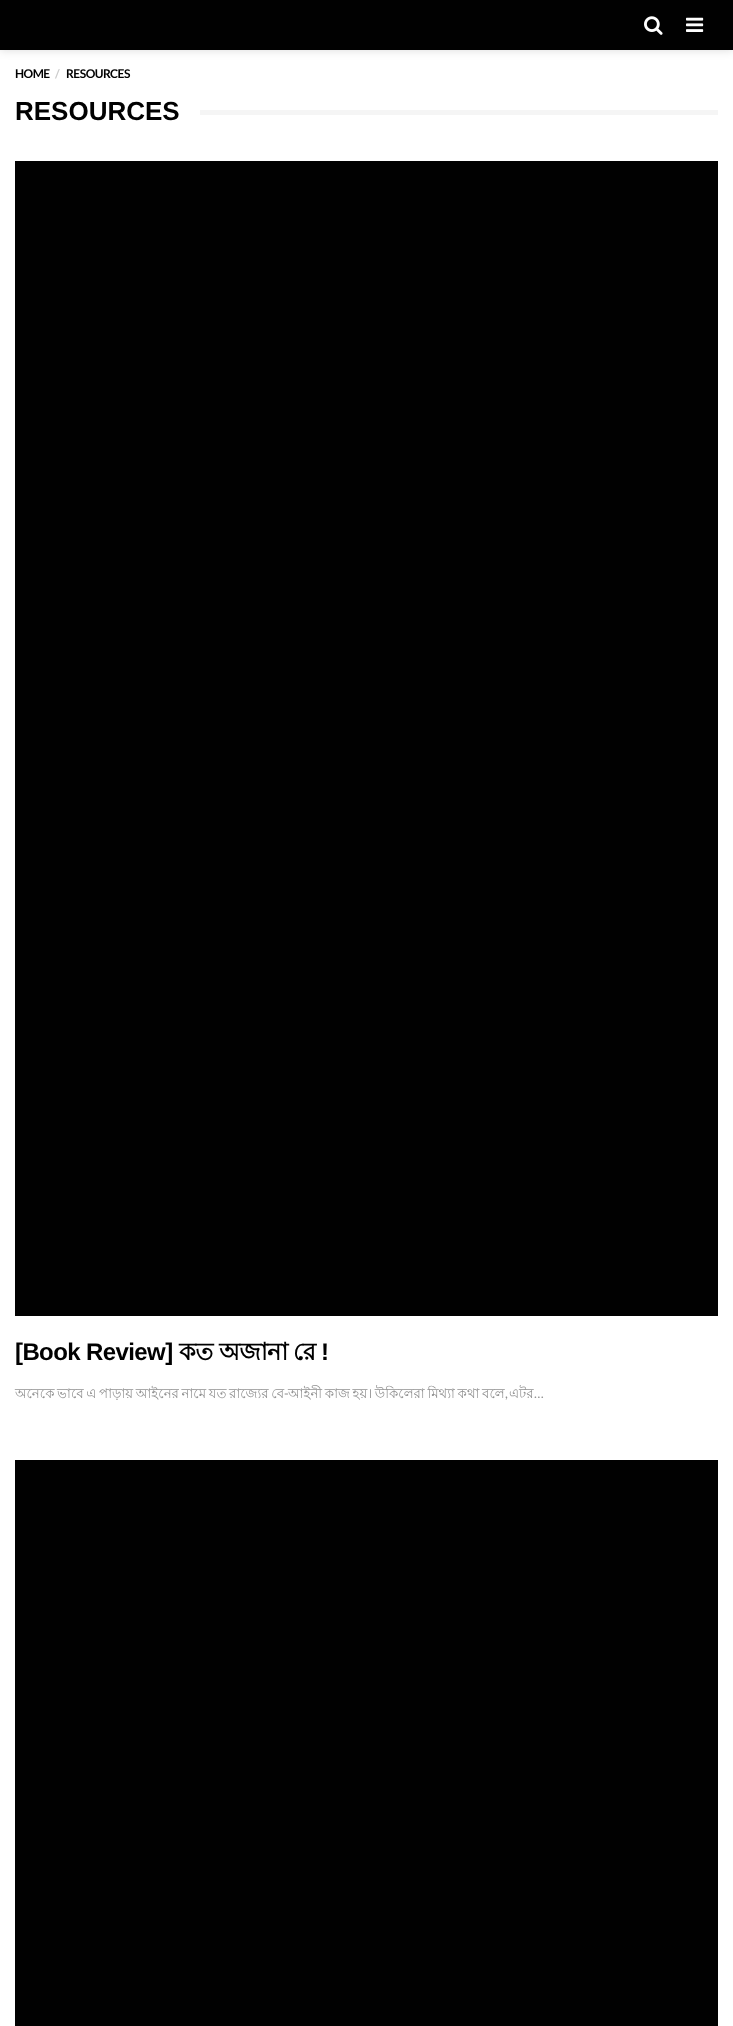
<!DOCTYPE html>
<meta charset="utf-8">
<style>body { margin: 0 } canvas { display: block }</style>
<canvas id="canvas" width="733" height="2026"></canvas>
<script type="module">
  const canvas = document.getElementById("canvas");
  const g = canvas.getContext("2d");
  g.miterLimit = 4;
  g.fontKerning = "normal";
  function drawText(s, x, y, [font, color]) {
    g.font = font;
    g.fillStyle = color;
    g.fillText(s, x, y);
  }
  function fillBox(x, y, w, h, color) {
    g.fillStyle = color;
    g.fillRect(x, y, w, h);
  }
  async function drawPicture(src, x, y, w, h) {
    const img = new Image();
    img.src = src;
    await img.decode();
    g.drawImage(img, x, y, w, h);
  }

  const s1 = ["bold 12px Lato", "#010101"];
  const s2 = ["bold 12px Lato", "#CCCCCC"];
  const s3 = ["bold 26px Liberation Sans", "#010101"];
  const s4 = ["bold 24px Liberation Sans", "#010101"];
  const s5 = ["bold 24px Lohit Bengali", "#010101"];
  const s6 = ["13.3px Lohit Bengali", "#919191"];
  const s7 = ["13.3px Lato", "#919191"];

  fillBox(0, 0, 733, 2026, "#FFFFFF");
  g.fillStyle = "rgba(0, 0, 0, 0.15)";
  g.filter = "blur(5px)";
  g.beginPath();
  g.rect(0, 0, 733, 50);
  g.fill();
  g.filter = "none";
  fillBox(0, 0, 733, 50, "#010101");
  await drawPicture("pic1.png", 644, 16, 19, 19);
  await drawPicture("pic2.png", 686, 17, 18, 15);
  g.letterSpacing = "-0.5px";
  drawText("HOME", 15, 78, s1);
  drawText("/", 55, 78, s2);
  drawText("RESOURCES", 66, 78, s1);
  g.letterSpacing = "0px";
  drawText("RESOURCES", 15, 120, s3);
  fillBox(200, 110, 518, 5, "#F5F5F5");
  fillBox(15, 161, 703, 1155, "#010101");
  g.letterSpacing = "-0.6px";
  drawText("[Book Review]", 15, 1360, s4);
  drawText("কত", 179, 1360, s5);
  drawText("অজানা", 219, 1360, s5);
  drawText("রে", 293, 1360, s5);
  drawText("!", 321, 1360, s4);
  g.letterSpacing = "0px";
  g.wordSpacing = "-1px";
  drawText("অনেকে ভাবে এ পাড়ায় আইনের নামে যত রাজ্যের বে", 15, 1398, s6);
  g.wordSpacing = "0px";
  drawText("-", 284, 1398, s7);
  g.wordSpacing = "-1px";
  drawText("আইনী কাজ হয়। উকিলেরা মিথ্যা কথা বলে", 288, 1398, s6);
  g.wordSpacing = "0px";
  drawText("এটর", 509, 1398, s6);
  drawText(",", 505, 1398, s7);
  drawText("…", 534, 1398, s7);
  fillBox(15, 1460, 703, 566, "#010101");
</script>
